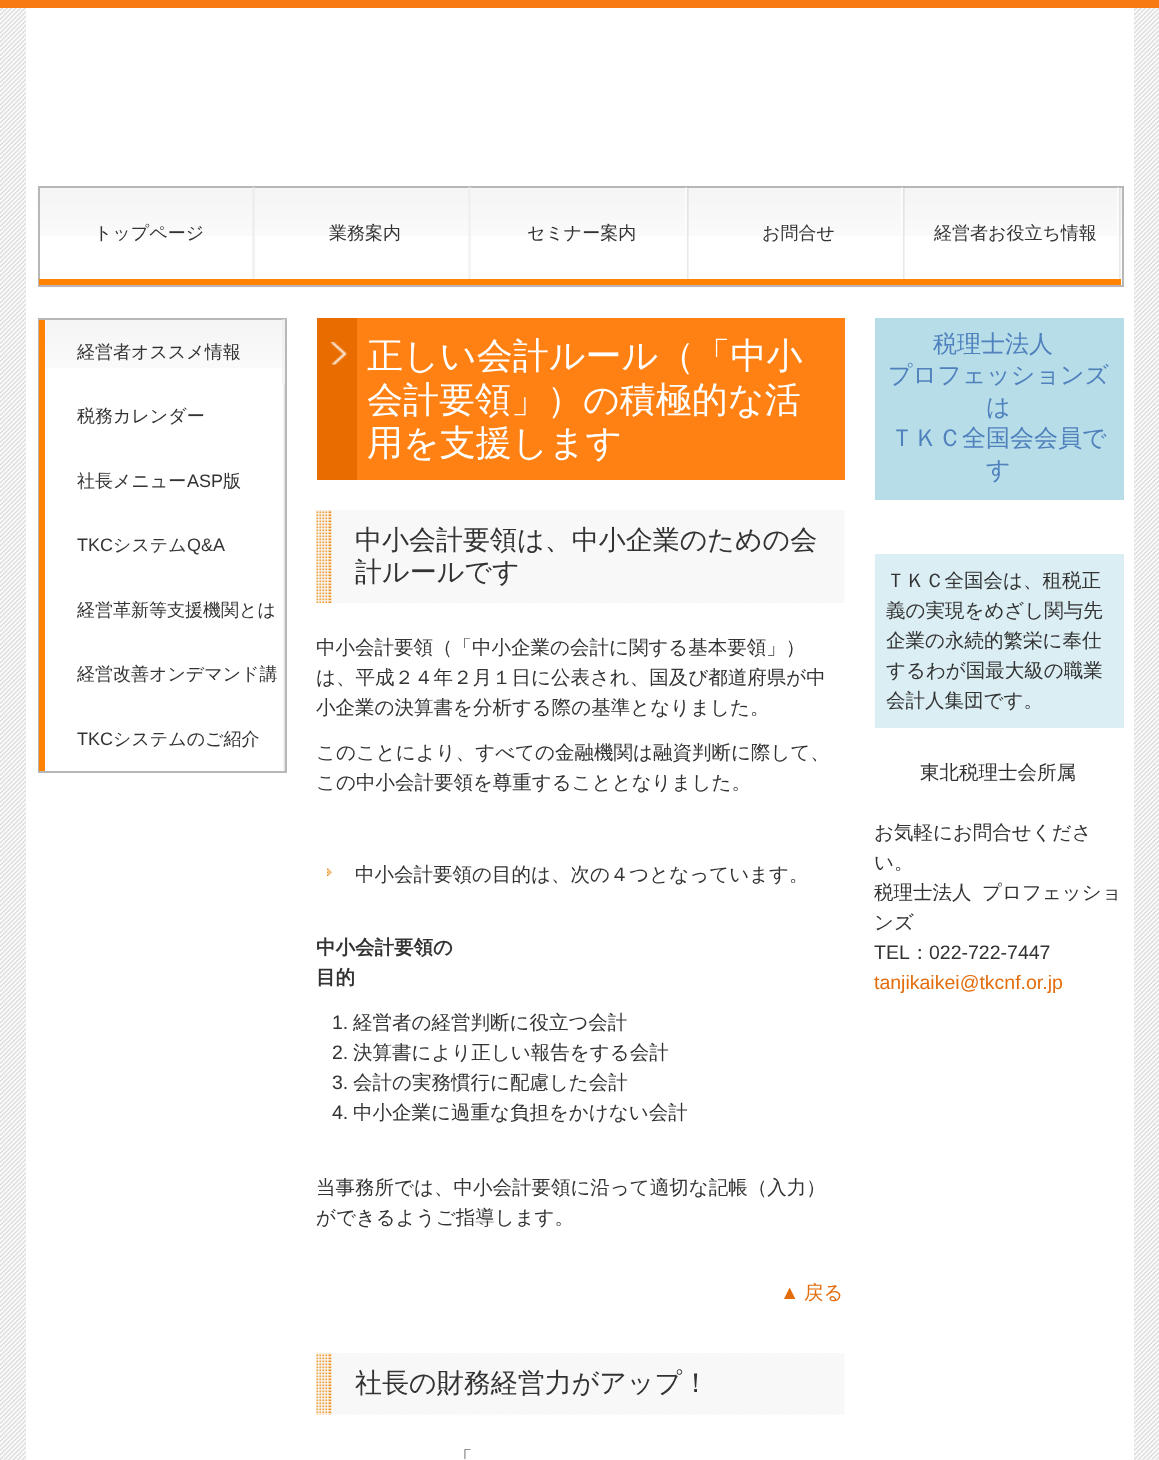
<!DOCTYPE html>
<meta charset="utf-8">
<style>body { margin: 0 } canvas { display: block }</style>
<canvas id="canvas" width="1159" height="1460"></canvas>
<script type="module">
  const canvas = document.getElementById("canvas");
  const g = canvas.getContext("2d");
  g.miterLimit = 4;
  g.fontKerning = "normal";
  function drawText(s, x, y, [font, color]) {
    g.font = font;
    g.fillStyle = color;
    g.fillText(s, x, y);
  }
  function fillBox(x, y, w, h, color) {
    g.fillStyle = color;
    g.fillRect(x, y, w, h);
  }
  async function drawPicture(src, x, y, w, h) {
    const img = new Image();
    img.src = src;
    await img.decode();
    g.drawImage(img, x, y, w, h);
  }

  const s1 = ["500 18px WenQuanYi Zen Hei", "#333333"];
  const s2 = ["18px Liberation Sans", "#333333"];
  const s3 = ["500 36px WenQuanYi Zen Hei", "#FFFFFF"];
  const s4 = ["500 27px WenQuanYi Zen Hei", "#333333"];
  const s5 = ["500 19.5px WenQuanYi Zen Hei", "#333333"];
  const s6 = ["bold 19.5px WenQuanYi Zen Hei", "#333333"];
  const s7 = ["19.5px Liberation Sans", "#333333"];
  const s8 = ["19.5px Liberation Sans", "#E36C0C"];
  const s9 = ["500 19.5px WenQuanYi Zen Hei", "#E36C0C"];
  const s10 = ["500 24px WenQuanYi Zen Hei", "#4F81BD"];

  fillBox(0, 0, 1159, 1460, "#FFFFFF");
  fillBox(0, 0, 1159, 8, "#F87A13");
  await drawPicture("pic1.png", 0, 8, 1159, 1452);
  fillBox(26, 8, 1108, 1452, "#FFFFFF");
  await drawPicture("pic2.png", 37, 187, 1085, 49);
  g.strokeStyle = "#B7B7B7";
  g.lineWidth = 2;
  g.strokeRect(39, 187, 1084, 99);
  fillBox(252, 187, 3, 98, "rgba(231, 231, 231, 0.55)");
  fillBox(39, 279, 216, 6, "#FF8300");
  drawText("トップページ", 94, 239, s1);
  fillBox(468, 187, 3, 98, "rgba(237, 237, 237, 0.6)");
  fillBox(255, 279, 866, 6, "#FF8300");
  drawText("業務案内", 329, 239, s1);
  await drawPicture("pic3.png", 685, 187, 4, 92);
  drawText("セミナー案内", 527, 239, s1);
  await drawPicture("pic3.png", 901, 187, 4, 92);
  drawText("お問合せ", 762, 239, s1);
  await drawPicture("pic3.png", 1117, 187, 4, 92);
  drawText("経営者お役立ち情報", 934, 239, s1);
  await drawPicture("pic4.png", 37, 319, 248, 49);
  g.strokeRect(39, 319, 247, 453);
  fillBox(282, 319, 3, 65, "rgba(237, 237, 237, 0.6)");
  fillBox(39, 320, 6, 451, "#FF8300");
  drawText("経営者オススメ情報", 77, 358, s1);
  await drawPicture("pic5.png", 283, 384, 2, 65);
  drawText("税務カレンダー", 77, 422, s1);
  await drawPicture("pic6.png", 283, 448, 2, 65);
  drawText("社長メニュー", 77, 487, s1);
  drawText("ASP", 187, 487, s2);
  drawText("版", 223, 487, s1);
  await drawPicture("pic5.png", 283, 513, 2, 65);
  drawText("TKC", 77, 551, s2);
  drawText("システム", 113, 551, s1);
  drawText("Q&A", 187, 551, s2);
  await drawPicture("pic6.png", 283, 577, 2, 65);
  drawText("経営革新等支援機関とは", 77, 616, s1);
  await drawPicture("pic5.png", 283, 642, 2, 65);
  drawText("経営改善オンデマンド講", 77, 680, s1);
  await drawPicture("pic6.png", 283, 706, 2, 65);
  drawText("TKC", 77, 745, s2);
  drawText("システムのご紹介", 113, 745, s1);
  fillBox(357, 318, 488, 162, "#FF8113");
  fillBox(317, 318, 40, 162, "#E86C00");
  await drawPicture("pic7.png", 330, 342, 17, 23);
  drawText("正しい会計ルール（「中小", 367, 368, s3);
  drawText("会計要領」）の積極的な活", 367, 412, s3);
  drawText("用を支援します", 367, 455, s3);
  await drawPicture("pic8.png", 316, 510, 529, 93);
  drawText("中小会計要領は、中小企業のための会", 355, 549, s4);
  drawText("計ルールです", 355, 581, s4);
  drawText("中小会計要領（「中小企業の会計に関する基本要領」）", 316, 654, s5);
  drawText("は、平成２４年２月１日に公表され、国及び都道府県が中", 316, 684, s5);
  drawText("小企業の決算書を分析する際の基準となりました。", 316, 714, s5);
  drawText("このことにより、すべての金融機関は融資判断に際して、", 316, 759, s5);
  drawText("この中小会計要領を尊重することとなりました。", 316, 789, s5);
  await drawPicture("pic9.png", 327, 868, 5, 8);
  drawText("中小会計要領の目的は、次の４つとなっています。", 355, 881, s5);
  drawText("中小会計要領の", 316, 954, s6);
  drawText("目的", 316, 984, s6);
  drawText("1.", 332, 1029, s7);
  drawText("経営者の経営判断に役立つ会計", 353, 1029, s5);
  drawText("2.", 332, 1059, s7);
  drawText("決算書により正しい報告をする会計", 353, 1059, s5);
  drawText("3.", 332, 1089, s7);
  drawText("会計の実務慣行に配慮した会計", 353, 1089, s5);
  drawText("4.", 332, 1119, s7);
  drawText("中小企業に過重な負担をかけない会計", 353, 1119, s5);
  drawText("当事務所では、中小会計要領に沿って適切な記帳（入力）", 316, 1194, s5);
  drawText("ができるようご指導します。", 316, 1224, s5);
  drawText("▲", 780, 1299, s8);
  drawText("戻る", 804, 1299, s9);
  await drawPicture("pic10.png", 316, 1353, 529, 62);
  drawText("社長の財務経営力がアップ！", 355, 1392, s4);
  drawText("「", 453, 1465, s5);
  fillBox(875, 318, 249, 182, "#B7DDE8");
  drawText("税理士法人", 933, 352, s10);
  drawText("プロフェッションズ", 888, 383, s10);
  drawText("は", 986, 415, s10);
  drawText("ＴＫＣ全国会会員で", 890, 446, s10);
  drawText("す", 986, 478, s10);
  fillBox(875, 554, 249, 174, "#DBEEF3");
  drawText("ＴＫＣ全国会は、租税正", 886, 587, s5);
  drawText("義の実現をめざし関与先", 886, 617, s5);
  drawText("企業の永続的繁栄に奉仕", 886, 647, s5);
  drawText("するわが国最大級の職業", 886, 677, s5);
  drawText("会計人集団です。", 886, 707, s5);
  drawText("東北税理士会所属", 920, 779, s5);
  drawText("お気軽にお問合せくださ", 874, 839, s5);
  drawText("い。", 874, 869, s5);
  drawText("税理士法人", 874, 899, s5);
  drawText("プロフェッショ", 982, 899, s5);
  drawText("ンズ", 874, 929, s5);
  drawText("TEL", 874, 959, s7);
  drawText("：", 910, 959, s5);
  drawText("022-722-7447", 929, 959, s7);
  drawText("tanjikaikei@tkcnf.or.jp", 874, 989, s8);
</script>
